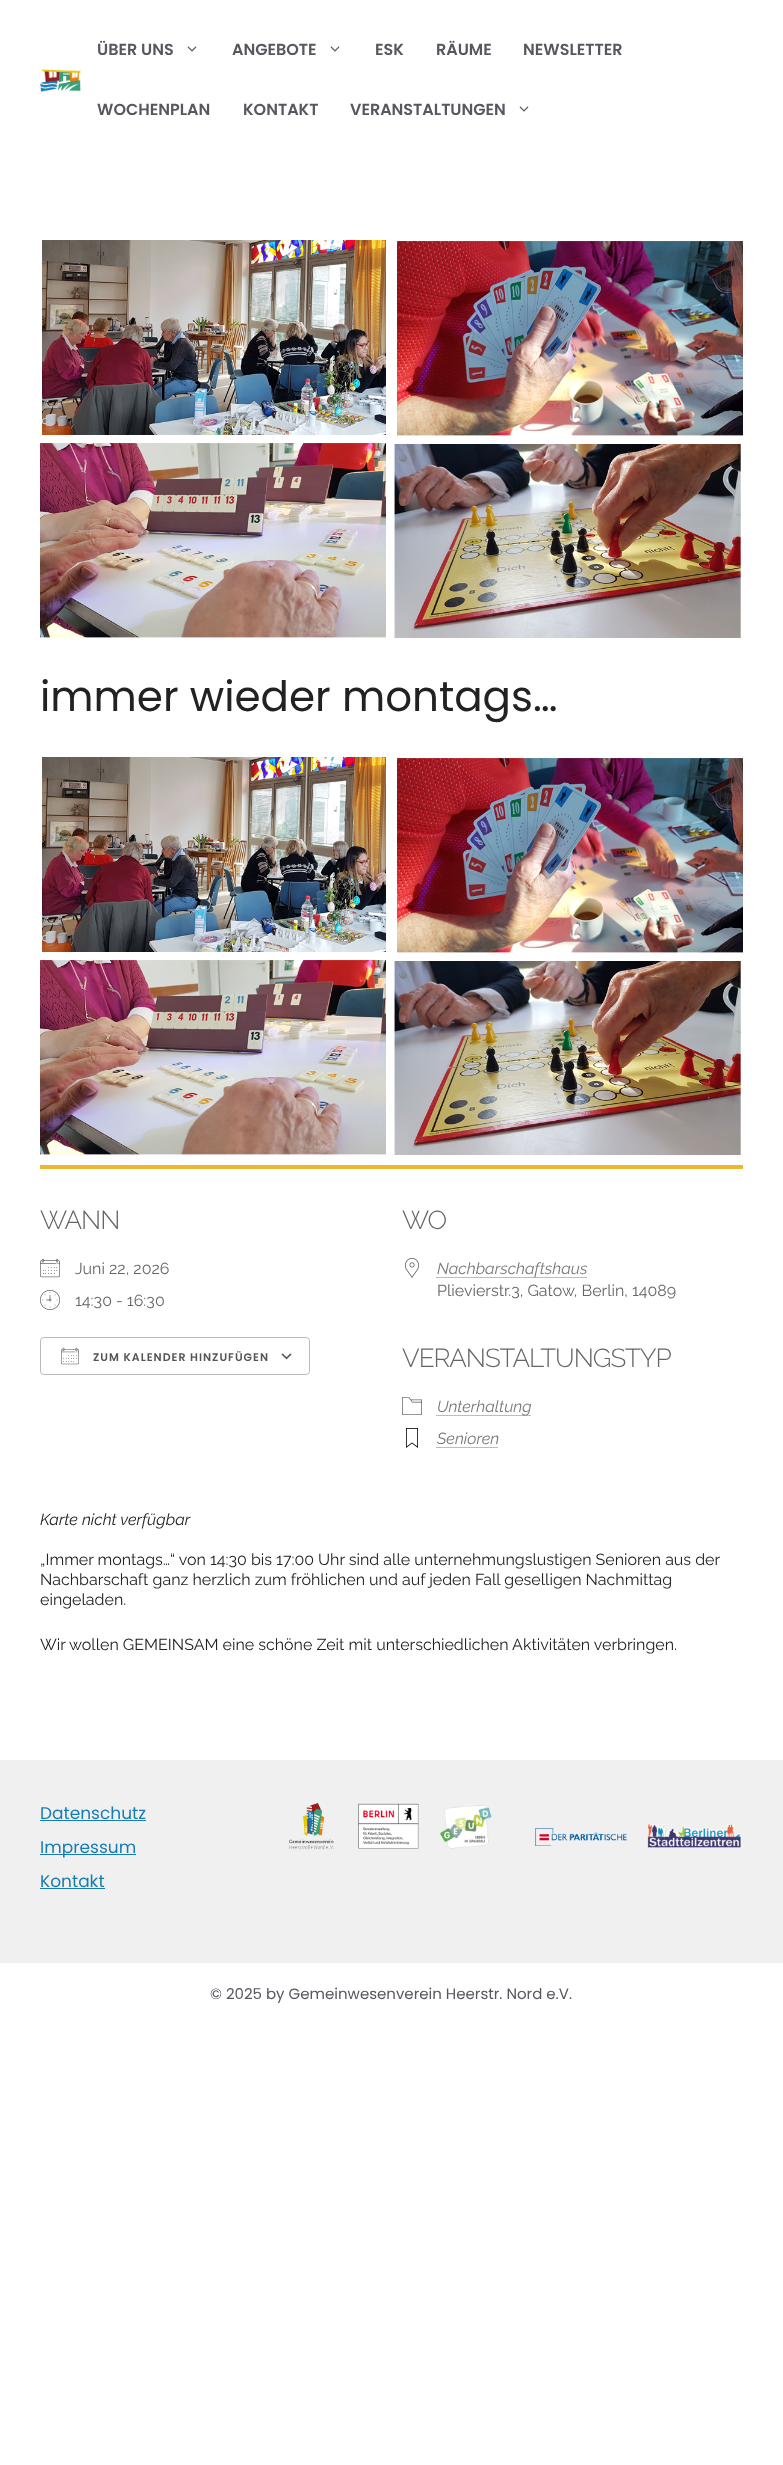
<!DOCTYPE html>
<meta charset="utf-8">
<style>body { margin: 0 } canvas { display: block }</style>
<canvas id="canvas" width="783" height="2465"></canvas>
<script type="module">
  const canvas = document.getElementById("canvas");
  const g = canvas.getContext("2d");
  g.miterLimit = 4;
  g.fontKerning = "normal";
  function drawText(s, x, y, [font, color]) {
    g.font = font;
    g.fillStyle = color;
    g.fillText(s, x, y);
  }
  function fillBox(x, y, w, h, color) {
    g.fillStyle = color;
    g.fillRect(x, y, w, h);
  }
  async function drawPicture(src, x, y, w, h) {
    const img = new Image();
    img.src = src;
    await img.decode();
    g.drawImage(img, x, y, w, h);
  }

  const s1 = ["600 16px Poppins", "#575760"];
  const s2 = ["42px Poppins", "#222222"];
  const s3 = ["300 26px Raleway", "#666666"];
  const s4 = ["16px Raleway", "#666666"];
  const s5 = ["600 11px Poppins", "#545454"];
  const s6 = ["italic 16px Raleway", "#787878"];
  const s7 = ["italic 16px Raleway", "#222222"];
  const s8 = ["16px Raleway", "#222222"];
  const s9 = ["17px Poppins", "#177CB4"];
  const s10 = ["15px Poppins", "#575760"];

  fillBox(0, 0, 783, 2465, "#FFFFFF");
  await drawPicture("pic1.png", 40, 69, 41, 23);
  drawText("ÜBER UNS", 97, 55, s1);
  await drawPicture("pic2.png", 187, 46, 10, 6);
  drawText("ANGEBOTE", 232, 55, s1);
  await drawPicture("pic2.png", 330, 46, 10, 6);
  drawText("ESK", 375, 55, s1);
  drawText("RÄUME", 436, 55, s1);
  drawText("NEWSLETTER", 523, 55, s1);
  drawText("WOCHENPLAN", 97, 115, s1);
  drawText("KONTAKT", 243, 115, s1);
  drawText("VERANSTALTUNGEN", 350, 115, s1);
  await drawPicture("pic2.png", 519, 106, 10, 6);
  await drawPicture("pic3.png", 40, 240, 703, 398);
  drawText("immer wieder montags…", 40, 711, s2);
  await drawPicture("pic3.png", 40, 757, 703, 398);
  fillBox(40, 1165, 703, 4, "#EDB831");
  g.letterSpacing = "-1px";
  drawText("WANN", 40, 1229, s3);
  await drawPicture("pic4.png", 40, 1258, 20, 20);
  g.letterSpacing = "0px";
  drawText("Juni 22, 2026", 75, 1274, s4);
  await drawPicture("pic5.png", 40, 1290, 20, 20);
  drawText("14:30 - 16:30", 75, 1306, s4);
  await drawPicture("pic6.png", 281, 1353, 11, 7);
  g.beginPath();
  g.roundRect(40.5, 1337.5, 269, 37, 3.5);
  g.strokeStyle = "#BABABA";
  g.stroke();
  await drawPicture("pic7.png", 61, 1347, 18, 18);
  g.letterSpacing = "1px";
  drawText("ZUM KALENDER HINZUFÜGEN", 93, 1361, s5);
  g.letterSpacing = "-1px";
  drawText("WO", 402, 1229, s3);
  await drawPicture("pic8.png", 405, 1258, 14, 20);
  g.beginPath();
  g.moveTo(436.5, 1277.5);
  g.lineTo(587, 1277.5);
  g.strokeStyle = "#787878";
  g.setLineDash([1, 1]);
  g.stroke();
  g.letterSpacing = "0px";
  drawText("Nachbarschaftshaus", 437, 1274, s6);
  drawText("Plievierstr.3, Gatow, Berlin, 14089", 437, 1296, s4);
  g.letterSpacing = "-1px";
  drawText("VERANSTALTUNGSTYP", 402, 1367, s3);
  await drawPicture("pic9.png", 402, 1397, 20, 18);
  g.beginPath();
  g.moveTo(436.5, 1415.5);
  g.lineTo(531, 1415.5);
  g.stroke();
  g.letterSpacing = "0px";
  drawText("Unterhaltung", 437, 1412, s6);
  await drawPicture("pic10.png", 406, 1428, 12, 20);
  drawText("Senioren", 437, 1444, s6);
  g.beginPath();
  g.moveTo(436.5, 1447.5);
  g.lineTo(498.5, 1447.5);
  g.stroke();
  drawText("Karte nicht verfügbar", 40, 1525, s7);
  drawText("„Immer montags…“ von 14:30 bis 17:00 Uhr sind alle unternehmungslustigen Senioren aus der", 40, 1565, s8);
  drawText("Nachbarschaft ganz herzlich zum fröhlichen und auf jeden Fall geselligen Nachmittag", 40, 1585, s8);
  drawText("eingeladen.", 40, 1605, s8);
  drawText("Wir wollen GEMEINSAM eine schöne Zeit mit unterschiedlichen Aktivitäten verbringen.", 40, 1650, s8);
  fillBox(0, 1760, 783, 203, "#F0F0F0");
  drawText("Datenschutz", 40, 1819, s9);
  fillBox(40, 1820, 106, 1, "#177CB4");
  fillBox(40, 1854, 96, 1, "#177CB4");
  drawText("Impressum", 40, 1853, s9);
  drawText("Kontakt", 40, 1887, s9);
  fillBox(40, 1888, 65, 1, "#177CB4");
  await drawPicture("pic11.png", 289, 1803, 203, 47);
  await drawPicture("pic12.png", 535, 1824, 208, 24);
  drawText("© 2025 by Gemeinwesenverein Heerstr. Nord e.V.", 210, 1999, s10);
</script>
